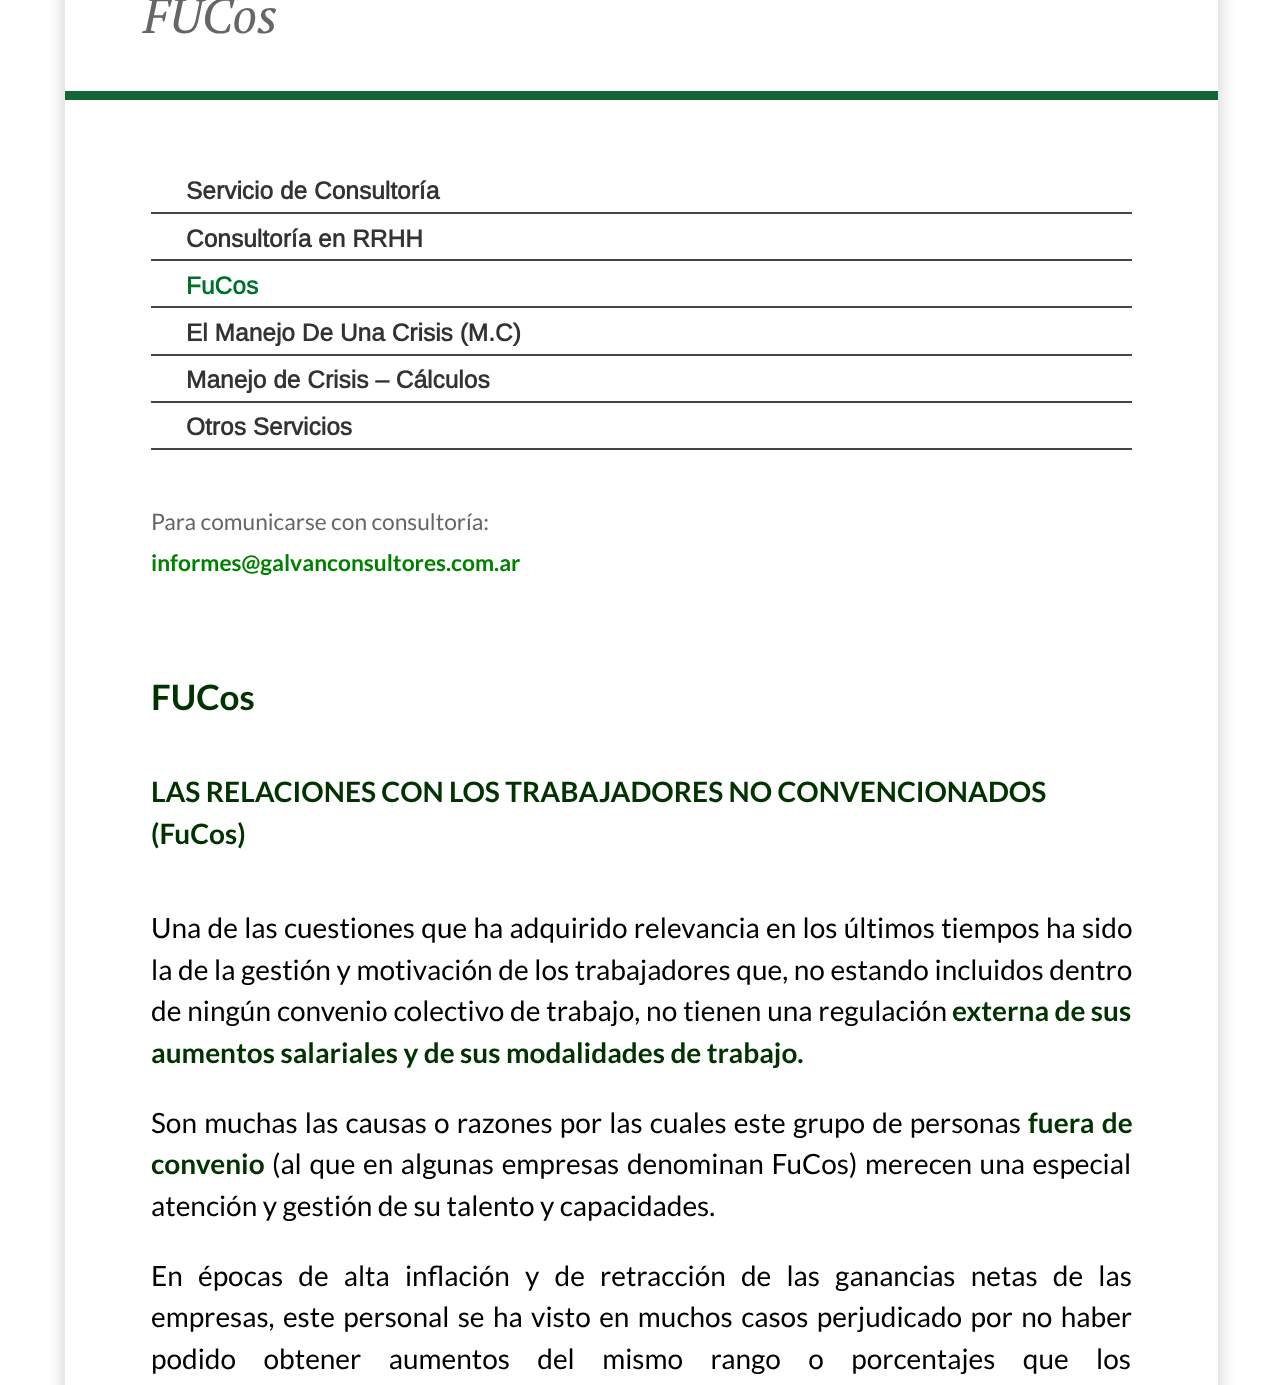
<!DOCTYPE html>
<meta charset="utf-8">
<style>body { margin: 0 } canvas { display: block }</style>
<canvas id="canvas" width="1282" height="1385"></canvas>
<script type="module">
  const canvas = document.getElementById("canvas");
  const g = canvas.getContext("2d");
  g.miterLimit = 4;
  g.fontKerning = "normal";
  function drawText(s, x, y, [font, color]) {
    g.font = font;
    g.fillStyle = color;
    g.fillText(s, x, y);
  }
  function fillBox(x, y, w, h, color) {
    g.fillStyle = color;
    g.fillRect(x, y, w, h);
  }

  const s1 = ["italic 49px PT Serif", "#666666"];
  const s2 = ["bold 24.5px Arimo", "#333333"];
  const s3 = ["bold 24.5px Arimo", "#00712B"];
  const s4 = ["22.75px Lato", "#666666"];
  const s5 = ["bold 22.75px Lato", "#008000"];
  const s6 = ["bold 35px Lato", "#003300"];
  const s7 = ["bold 28px Lato", "#003300"];
  const s8 = ["28px Lato", "#000000"];

  fillBox(0, 0, 1282, 1385, "#FFFFFF");
  g.save();
  g.beginPath();
  g.moveTo(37, 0);
  g.lineTo(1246, 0);
  g.lineTo(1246, 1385);
  g.lineTo(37, 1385);
  g.closePath();
  g.moveTo(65, -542);
  g.lineTo(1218, -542);
  g.lineTo(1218, 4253);
  g.lineTo(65, 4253);
  g.closePath();
  g.clip("evenodd");
  g.fillStyle = "rgba(0, 0, 0, 0.2)";
  g.filter = "blur(9px)";
  g.beginPath();
  g.rect(65, -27, 1153, 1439);
  g.fill();
  g.filter = "none";
  g.restore();
  fillBox(65, 91, 1153, 9, "#136535");
  drawText("FUCos", 143, 33, s1);
  fillBox(151, 212, 981, 2, "#454545");
  drawText("Servicio de Consultoría", 186, 199, s2);
  fillBox(151, 259, 981, 2, "#454545");
  drawText("Consultoría en RRHH", 186, 247, s2);
  fillBox(151, 306, 981, 2, "#454545");
  drawText("FuCos", 186, 294, s3);
  fillBox(151, 354, 981, 2, "#454545");
  drawText("El Manejo De Una Crisis (M.C)", 186, 341, s2);
  fillBox(151, 401, 981, 2, "#454545");
  drawText("Manejo de Crisis – Cálculos", 186, 388, s2);
  fillBox(151, 448, 981, 2, "#454545");
  drawText("Otros Servicios", 186, 435, s2);
  drawText("Para comunicarse con consultoría:", 151, 530, s4);
  drawText("informes@galvanconsultores.com.ar", 151, 571, s5);
  drawText("FUCos", 151, 710, s6);
  drawText("LAS RELACIONES CON LOS TRABAJADORES NO CONVENCIONADOS", 151, 802, s7);
  drawText("(FuCos)", 151, 844, s7);
  g.wordSpacing = "0.9px";
  drawText("Una de las cuestiones que ha adquirido relevancia en los últimos tiempos ha sido", 151, 938, s8);
  g.wordSpacing = "0.25px";
  drawText("la de la gestión y motivación de los trabajadores que, no estando incluidos dentro", 151, 980, s8);
  g.wordSpacing = "0.5px";
  drawText("de ningún convenio colectivo de trabajo, no tienen una regulación", 151, 1021, s8);
  g.wordSpacing = "0px";
  drawText("externa de sus", 952, 1021, s7);
  drawText("aumentos salariales y de sus modalidades de trabajo.", 151, 1063, s7);
  g.wordSpacing = "1.75px";
  drawText("Son muchas las causas o razones por las cuales este grupo de personas", 151, 1133, s8);
  g.wordSpacing = "2px";
  drawText("fuera de", 1028, 1133, s7);
  g.wordSpacing = "0px";
  drawText("convenio", 151, 1174, s7);
  g.wordSpacing = "2.25px";
  drawText("(al que en algunas empresas denominan FuCos) merecen una especial", 272, 1174, s8);
  g.wordSpacing = "0px";
  drawText("atención y gestión de su talento y capacidades.", 151, 1216, s8);
  g.wordSpacing = "9.75px";
  drawText("En épocas de alta inflación y de retracción de las ganancias netas de las", 151, 1286, s8);
  g.wordSpacing = "3px";
  drawText("empresas, este personal se ha visto en muchos casos perjudicado por no haber", 151, 1327, s8);
  g.wordSpacing = "22px";
  drawText("podido obtener aumentos del mismo rango o porcentajes que los", 151, 1369, s8);
</script>
